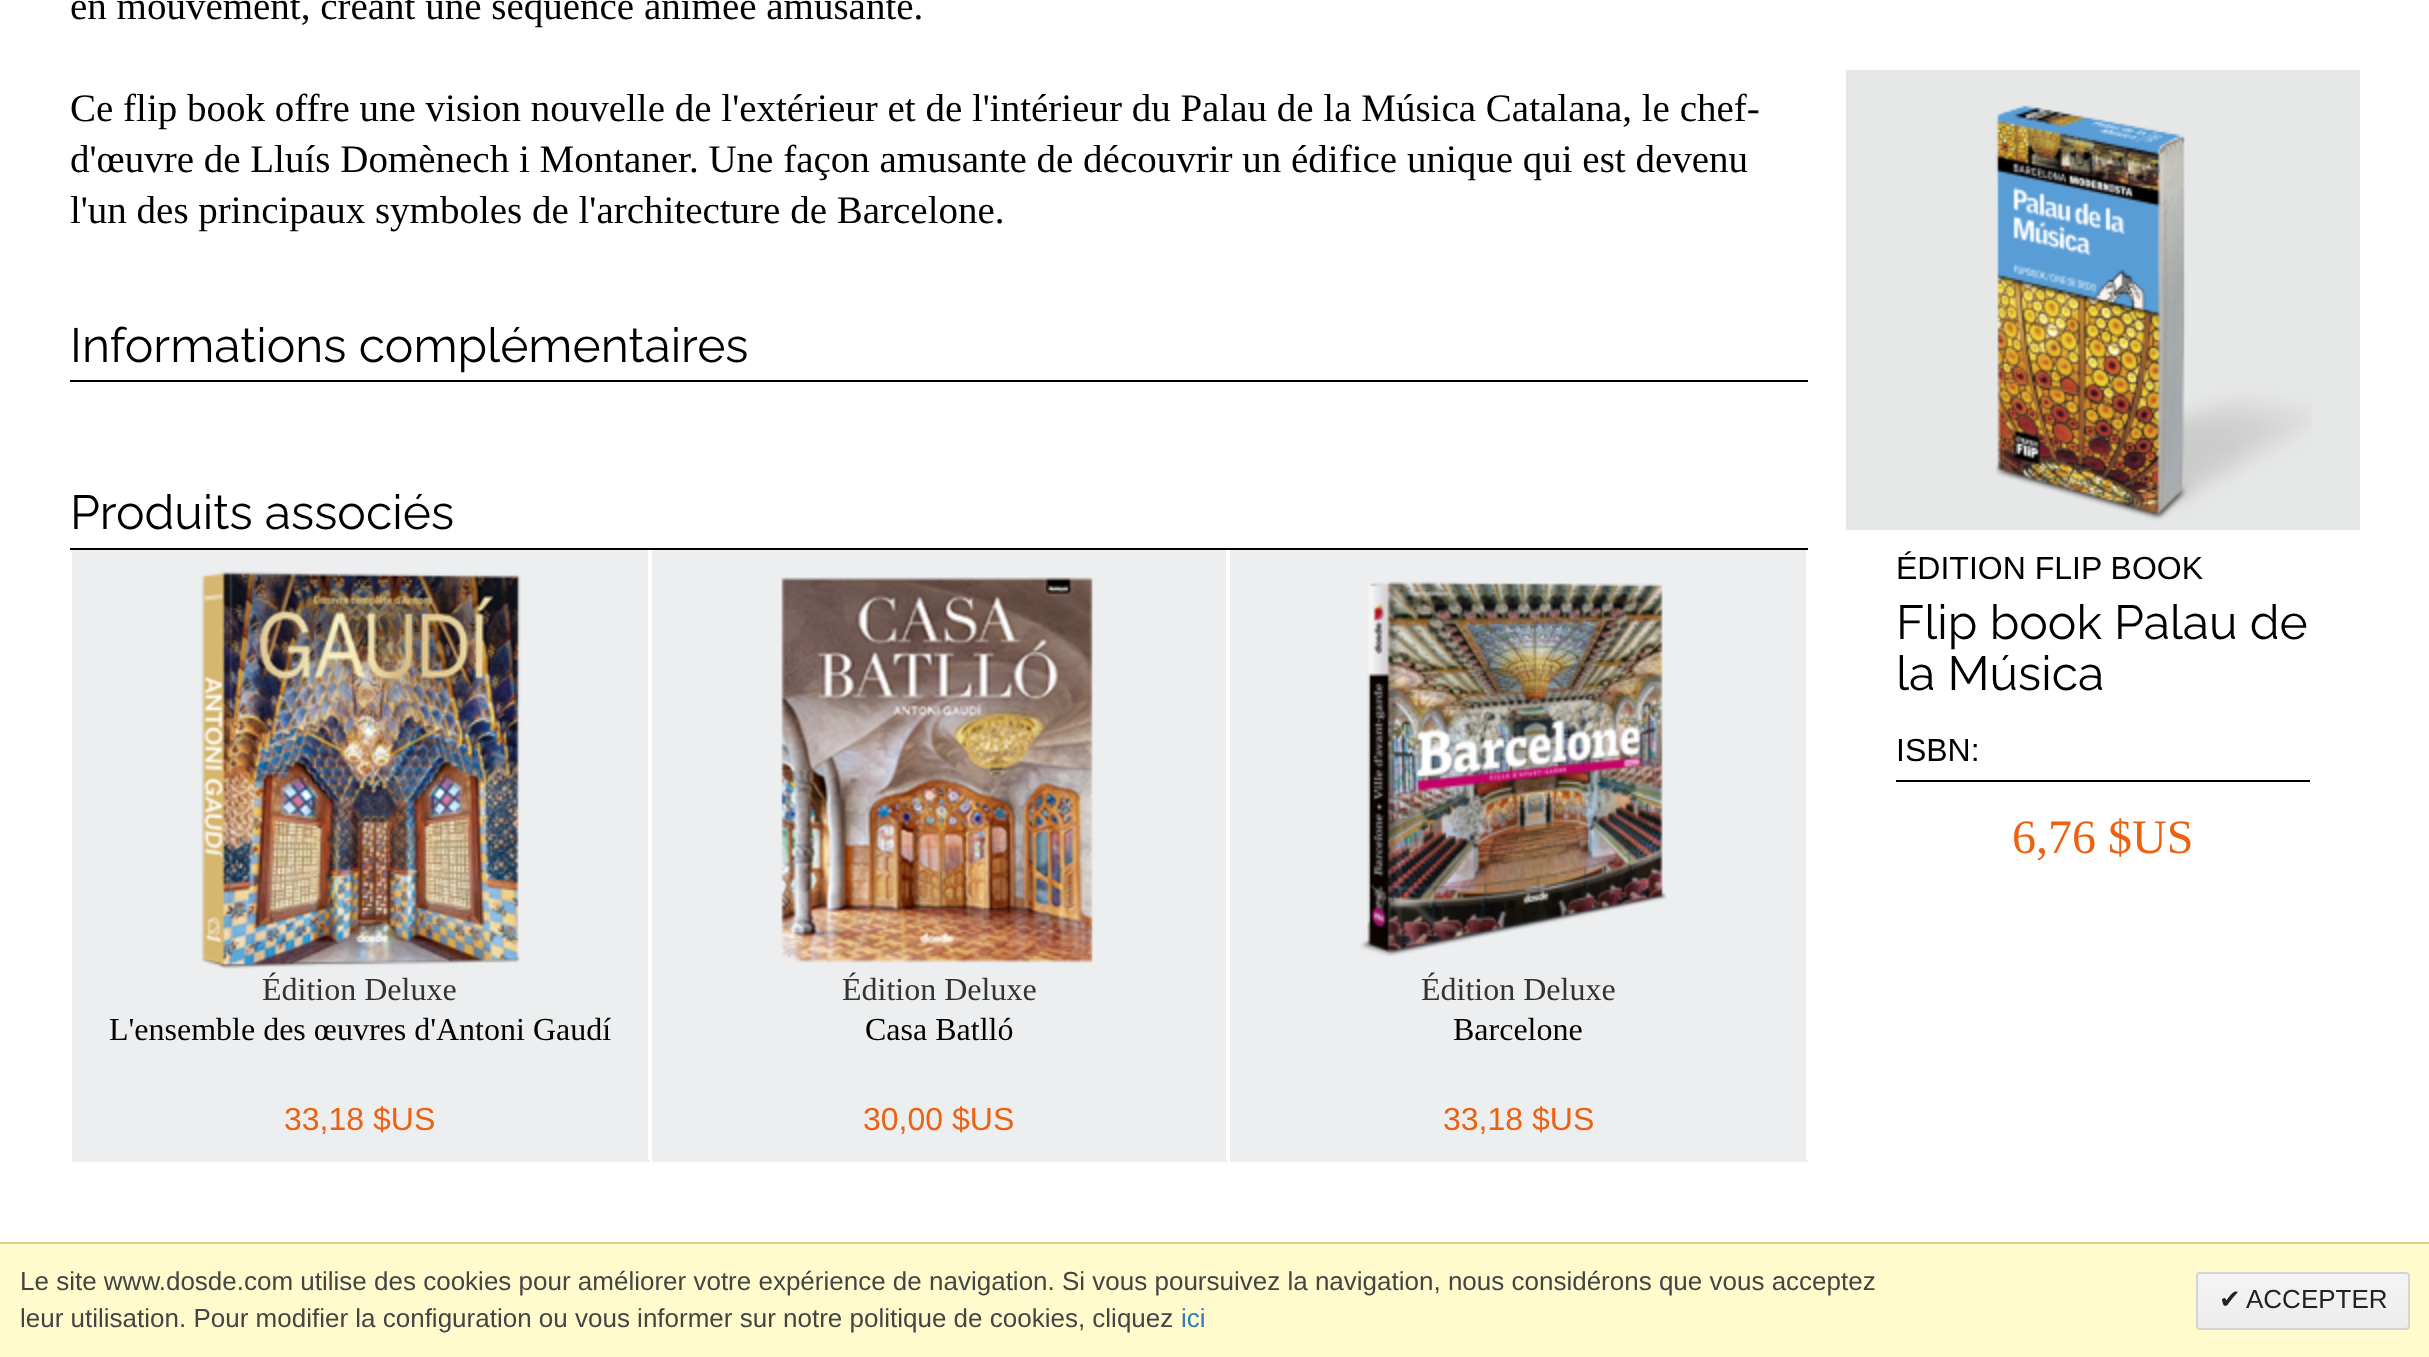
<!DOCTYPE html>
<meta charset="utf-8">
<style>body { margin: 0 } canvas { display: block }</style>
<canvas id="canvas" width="2429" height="1357"></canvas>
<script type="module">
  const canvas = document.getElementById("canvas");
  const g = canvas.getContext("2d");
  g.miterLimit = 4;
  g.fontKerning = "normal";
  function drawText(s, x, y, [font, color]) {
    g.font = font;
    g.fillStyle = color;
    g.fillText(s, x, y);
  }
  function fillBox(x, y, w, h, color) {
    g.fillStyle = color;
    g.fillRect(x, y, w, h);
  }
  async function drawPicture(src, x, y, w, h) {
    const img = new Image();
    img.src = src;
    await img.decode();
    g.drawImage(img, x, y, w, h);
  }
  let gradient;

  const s1 = ["39px Liberation Serif", "#000000"];
  const s2 = ["48px Raleway", "#000000"];
  const s3 = ["32px Liberation Serif", "#333333"];
  const s4 = ["32px Liberation Serif", "#000000"];
  const s5 = ["32px Liberation Sans", "#EA6212"];
  const s6 = ["32px Liberation Sans", "#000000"];
  const s7 = ["48px Liberation Serif", "#EA6212"];
  const s8 = ["26px Liberation Sans", "#444444"];
  const s9 = ["26px Liberation Sans", "#337AB7"];
  const s10 = ["26px DejaVu Sans", "#222222"];
  const s11 = ["26px Liberation Sans", "#222222"];

  fillBox(0, 0, 2429, 1357, "#FFFFFF");
  drawText("en mouvement, créant une séquence animée amusante.", 70, 19, s1);
  drawText("Ce flip book offre une vision nouvelle de l'extérieur et de l'intérieur du Palau de la Música Catalana, le chef-", 70, 121, s1);
  drawText("d'œuvre de Lluís Domènech i Montaner. Une façon amusante de découvrir un édifice unique qui est devenu", 70, 172, s1);
  drawText("l'un des principaux symboles de l'architecture de Barcelone.", 70, 223, s1);
  fillBox(70, 380, 1738, 2, "#000000");
  drawText("Informations complémentaires", 70, 362, s2);
  fillBox(70, 548, 1738, 2, "#000000");
  drawText("Produits associés", 70, 529, s2);
  fillBox(72, 550, 576, 610, "#EDEEEF");
  fillBox(70, 1160, 1738, 2, "#EDEEEF");
  fillBox(70, 1160, 2, 2, "#FFFFFF");
  await drawPicture("pic1.png", 201, 571, 320, 398);
  drawText("Édition Deluxe", 262, 1000, s3);
  drawText("L'ensemble des œuvres d'Antoni Gaudí", 109, 1040, s4);
  drawText("33,18 $US", 284, 1130, s5);
  fillBox(652, 550, 574, 610, "#EDEEEF");
  fillBox(650, 1160, 2, 2, "#FFFFFF");
  await drawPicture("pic2.png", 781, 577, 312, 386);
  drawText("Édition Deluxe", 842, 1000, s3);
  drawText("Casa Batlló", 865, 1040, s4);
  drawText("30,00 $US", 863, 1130, s5);
  fillBox(1230, 550, 576, 610, "#EDEEEF");
  fillBox(1228, 1160, 2, 2, "#FFFFFF");
  await drawPicture("pic3.png", 1360, 581, 307, 376);
  drawText("Édition Deluxe", 1421, 1000, s3);
  drawText("Barcelone", 1453, 1040, s4);
  drawText("33,18 $US", 1443, 1130, s5);
  fillBox(1846, 70, 514, 460, "#E6E7E7");
  await drawPicture("pic4.png", 1995, 105, 317, 416);
  drawText("ÉDITION FLIP BOOK", 1896, 579, s6);
  drawText("Flip book Palau de", 1896, 639, s2);
  drawText("la Música", 1896, 690, s2);
  fillBox(1896, 780, 414, 2, "#000000");
  drawText("ISBN:", 1896, 761, s6);
  drawText("6,76 $US", 2012, 853, s7);
  fillBox(0, 1244, 2429, 113, "#FFFBCD");
  fillBox(0, 1242, 2429, 2, "#E2CD7B");
  drawText("Le site www.dosde.com utilise des cookies pour améliorer votre expérience de navigation. Si vous poursuivez la navigation, nous considérons que vous acceptez", 20, 1290, s8);
  drawText("leur utilisation. Pour modifier la configuration ou vous informer sur notre politique de cookies, cliquez", 20, 1327, s8);
  drawText("ici", 1181, 1327, s9);
  g.save();
  g.beginPath();
  g.roundRect(2196, 1272, 214, 58, 4);
  g.clip();
  gradient = g.createLinearGradient(2303, 1274, 2303, 1328);
  gradient.addColorStop(0, "#F4F4F4");
  gradient.addColorStop(1, "#ECECEC");
  g.fillStyle = gradient;
  g.fillRect(2196, 1274, 214, 54);
  g.restore();
  g.beginPath();
  g.roundRect(2197, 1273, 212, 56, 3);
  g.strokeStyle = "#D4D4D4";
  g.lineWidth = 2;
  g.stroke();
  drawText("✔", 2219, 1308, s10);
  drawText("ACCEPTER", 2246, 1308, s11);
</script>
